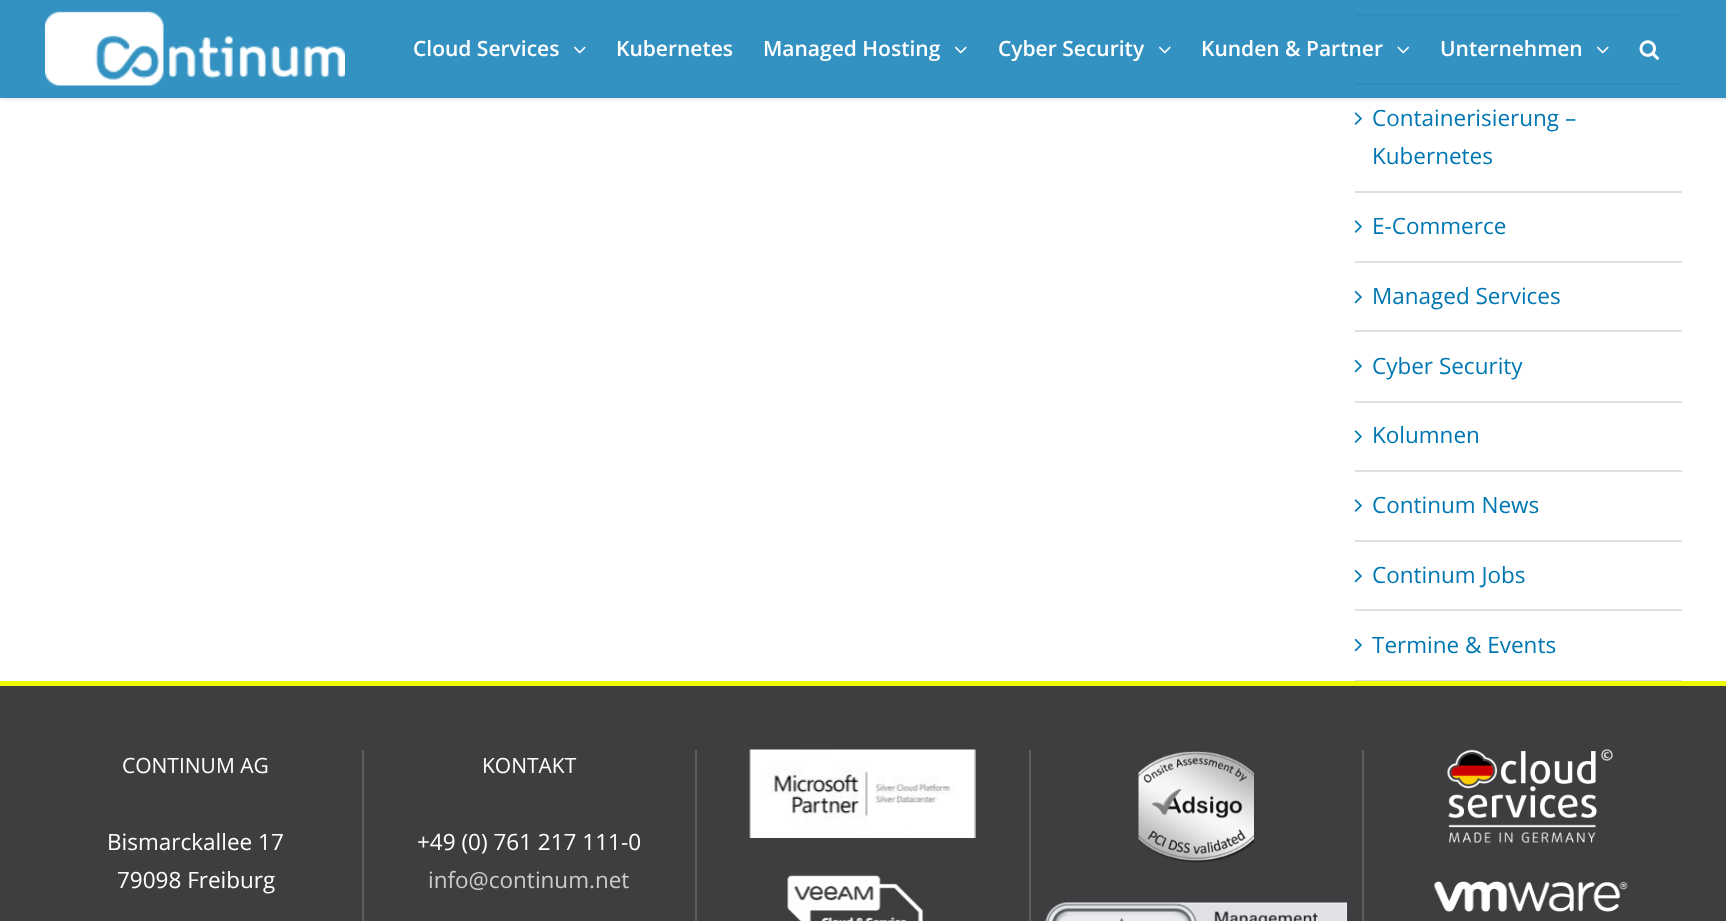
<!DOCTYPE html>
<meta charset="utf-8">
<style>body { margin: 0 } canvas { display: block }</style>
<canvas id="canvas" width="1726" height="921"></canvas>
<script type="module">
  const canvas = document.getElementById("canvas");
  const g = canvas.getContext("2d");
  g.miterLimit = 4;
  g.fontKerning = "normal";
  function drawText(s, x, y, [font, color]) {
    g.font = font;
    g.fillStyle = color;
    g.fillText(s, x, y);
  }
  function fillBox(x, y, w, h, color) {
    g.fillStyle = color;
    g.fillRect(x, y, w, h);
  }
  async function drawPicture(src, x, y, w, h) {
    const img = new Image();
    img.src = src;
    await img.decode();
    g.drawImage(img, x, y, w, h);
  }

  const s1 = ["600 21px Open Sans", "#FFFFFF"];
  const s2 = ["22.5px Open Sans", "#0077B2"];
  const s3 = ["21px Open Sans", "#FFFFFF"];
  const s4 = ["22.5px Open Sans", "#FFFFFF"];
  const s5 = ["22.5px Open Sans", "#CCCCCC"];

  fillBox(0, 0, 1726, 921, "#FFFFFF");
  fillBox(1355, 14, 327, 2, "#E0DEDE");
  fillBox(1355, 83, 327, 2, "#E0DEDE");
  await drawPicture("pic5.png", 1354, 43, 8, 13);
  g.save();
  g.beginPath();
  g.moveTo(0, 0);
  g.lineTo(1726, 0);
  g.lineTo(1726, 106);
  g.lineTo(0, 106);
  g.closePath();
  g.moveTo(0, 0);
  g.lineTo(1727, 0);
  g.lineTo(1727, 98);
  g.lineTo(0, 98);
  g.closePath();
  g.clip("evenodd");
  g.fillStyle = "rgba(0, 0, 0, 0.12)";
  g.filter = "blur(2px)";
  g.beginPath();
  g.rect(0, 2, 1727, 97);
  g.fill();
  g.filter = "none";
  g.restore();
  fillBox(0, 0, 1726, 98, "rgba(0, 119, 178, 0.8)");
  await drawPicture("pic1.png", 45, 11, 300, 75);
  drawText("Cloud Services", 413, 56, s1);
  await drawPicture("pic2.png", 574, 46, 12, 8);
  drawText("Kubernetes", 616, 56, s1);
  drawText("Managed Hosting", 763, 56, s1);
  await drawPicture("pic2.png", 955, 46, 12, 8);
  drawText("Cyber Security", 998, 56, s1);
  await drawPicture("pic2.png", 1159, 46, 12, 8);
  drawText("Kunden & Partner", 1201, 56, s1);
  await drawPicture("pic3.png", 1397, 46, 13, 8);
  drawText("Unternehmen", 1440, 56, s1);
  await drawPicture("pic2.png", 1597, 46, 12, 8);
  await drawPicture("pic4.png", 1639, 40, 20, 20);
  fillBox(1355, 191, 327, 2, "#E0DEDE");
  await drawPicture("pic5.png", 1354, 112, 8, 13);
  drawText("Containerisierung –", 1372, 126, s2);
  drawText("Kubernetes", 1372, 164, s2);
  fillBox(1355, 261, 327, 2, "#E0DEDE");
  await drawPicture("pic5.png", 1354, 220, 8, 13);
  drawText("E-Commerce", 1372, 234, s2);
  fillBox(1355, 330, 327, 2, "#E0DEDE");
  await drawPicture("pic6.png", 1354, 290, 8, 14);
  drawText("Managed Services", 1372, 304, s2);
  fillBox(1355, 401, 327, 2, "#E0DEDE");
  await drawPicture("pic6.png", 1354, 359, 8, 14);
  drawText("Cyber Security", 1372, 374, s2);
  fillBox(1355, 470, 327, 2, "#E0DEDE");
  await drawPicture("pic5.png", 1354, 430, 8, 13);
  drawText("Kolumnen", 1372, 443, s2);
  fillBox(1355, 540, 327, 2, "#E0DEDE");
  await drawPicture("pic5.png", 1354, 499, 8, 13);
  drawText("Continum News", 1372, 513, s2);
  fillBox(1355, 609, 327, 2, "#E0DEDE");
  await drawPicture("pic6.png", 1354, 569, 8, 14);
  drawText("Continum Jobs", 1372, 583, s2);
  fillBox(1355, 680, 327, 1, "#E0DEDE");
  await drawPicture("pic6.png", 1354, 638, 8, 14);
  drawText("Termine & Events", 1372, 653, s2);
  fillBox(0, 686, 1726, 235, "#3E3D40");
  fillBox(0, 681, 1726, 5, "#EAFB00");
  fillBox(362, 750, 2, 171, "#5E5E5E");
  drawText("CONTINUM AG", 122, 773, s3);
  drawText("Bismarckallee 17", 107, 850, s4);
  drawText("79098 Freiburg", 117, 888, s4);
  fillBox(695, 750, 2, 171, "#5E5E5E");
  drawText("KONTAKT", 482, 773, s3);
  drawText("+49 (0) 761 217 111-0", 417, 850, s4);
  drawText("info@continum.net", 428, 888, s5);
  fillBox(1029, 750, 2, 171, "#5E5E5E");
  await drawPicture("pic7.png", 749, 749, 227, 89);
  await drawPicture("pic8.png", 787, 875, 137, 46);
  fillBox(1362, 750, 2, 171, "#5E5E5E");
  await drawPicture("pic9.png", 1138, 751, 116, 112);
  await drawPicture("pic10.png", 1045, 902, 302, 19);
  await drawPicture("pic11.png", 1447, 749, 166, 94);
  await drawPicture("pic12.png", 1434, 881, 194, 31);
</script>
